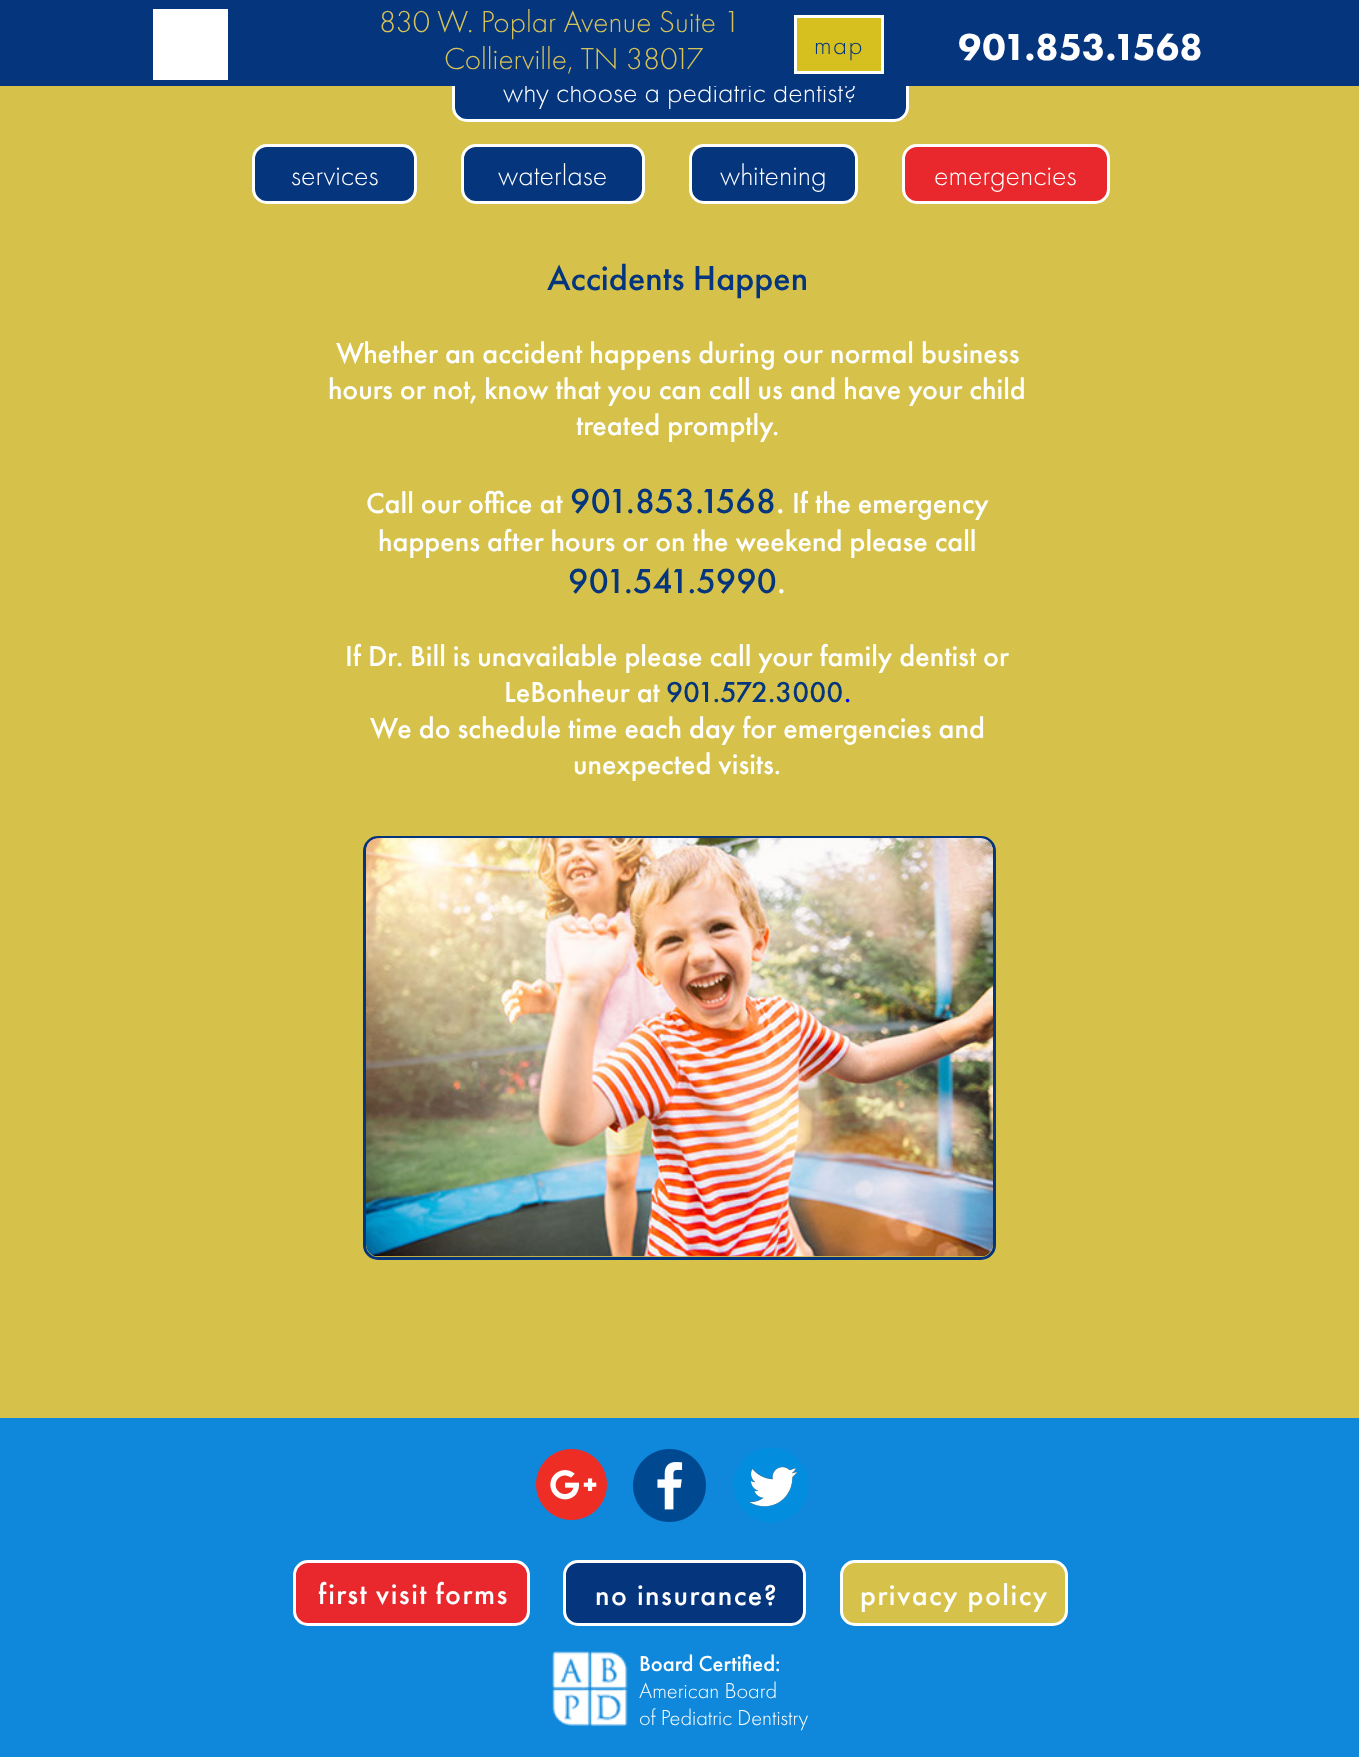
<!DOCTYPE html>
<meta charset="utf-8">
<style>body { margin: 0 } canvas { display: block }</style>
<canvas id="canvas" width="1359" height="1757"></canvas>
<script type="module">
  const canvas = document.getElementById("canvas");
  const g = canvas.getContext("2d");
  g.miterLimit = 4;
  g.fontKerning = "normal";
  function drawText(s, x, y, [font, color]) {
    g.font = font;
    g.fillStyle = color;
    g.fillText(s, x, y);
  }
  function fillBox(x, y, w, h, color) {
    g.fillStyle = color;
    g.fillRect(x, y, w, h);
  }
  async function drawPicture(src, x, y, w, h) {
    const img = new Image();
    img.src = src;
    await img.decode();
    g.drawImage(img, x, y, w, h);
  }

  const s1 = ["300 30px Futura PT", "#FFFFFF"];
  const s2 = ["300 31.5px Futura PT", "#D6C359"];
  const s3 = ["300 27px Futura PT", "#05357D"];
  const s4 = ["900 39px Futura PT", "#FFFFFF"];
  const s5 = ["500 36px Futura PT", "#05357D"];
  const s6 = ["500 30px Futura PT", "#FFFFFF"];
  const s7 = ["500 36px Futura PT", "#FFFFFF"];
  const s8 = ["500 30px Futura PT", "#05357D"];
  const s9 = ["500 30px Futura PT", "#0000FF"];
  const s10 = ["500 22.5px Futura PT", "#FFFFFF"];
  const s11 = ["300 22.5px Futura PT", "#FFFFFF"];

  fillBox(0, 0, 1359, 1757, "#D6C24A");
  g.fillStyle = "#05357D";
  g.beginPath();
  g.roundRect(453.5, 63.5, 454, 57, 13.5);
  g.fill();
  g.strokeStyle = "#FFFFFF";
  g.lineWidth = 3;
  g.stroke();
  drawText("why choose a pediatric dentist?", 503, 102, s1);
  fillBox(0, 0, 1359, 86, "#05357D");
  fillBox(153, 9, 75, 71, "#FFFFFF");
  drawText("830 W. Poplar Avenue Suite 1", 379, 32, s2);
  drawText("Collierville, TN 38017", 444, 69, s2);
  g.fillStyle = "#D6C01F";
  g.beginPath();
  g.rect(795.5, 16.5, 87, 56);
  g.fill();
  g.stroke();
  g.letterSpacing = "1.5px";
  drawText("map", 814, 54, s3);
  g.letterSpacing = "0px";
  drawText("901.853.1568", 958, 60, s4);
  g.fillStyle = "#05357D";
  g.beginPath();
  g.roundRect(253.5, 145.5, 162, 57, 13.5);
  g.fill();
  g.stroke();
  drawText("services", 291, 185, s1);
  g.fillStyle = "#05357D";
  g.beginPath();
  g.roundRect(462.5, 145.5, 181, 57, 13.5);
  g.fill();
  g.stroke();
  drawText("waterlase", 498, 185, s1);
  g.fillStyle = "#05357D";
  g.beginPath();
  g.roundRect(690.5, 145.5, 166, 57, 13.5);
  g.fill();
  g.stroke();
  drawText("whitening", 720, 185, s1);
  g.fillStyle = "#E8282C";
  g.beginPath();
  g.roundRect(903.5, 145.5, 205, 57, 13.5);
  g.fill();
  g.stroke();
  drawText("emergencies", 934, 185, s1);
  drawText("Accidents Happen", 547, 290, s5);
  drawText("Whether an accident happens during our normal business", 336, 363, s6);
  drawText("hours or not, know that you can call us and have your child", 328, 399, s6);
  drawText("treated promptly.", 576, 435, s6);
  drawText("Call our office at", 366, 513, s6);
  drawText("901.853.1568", 570, 513, s5);
  drawText(".", 776, 513, s7);
  drawText("If the emergency", 792, 513, s6);
  drawText("happens after hours or on the weekend please call", 378, 551, s6);
  drawText("901.541.5990", 568, 593, s5);
  drawText(".", 777, 593, s7);
  drawText("If Dr. Bill is unavailable please call your family dentist or", 345, 666, s6);
  drawText("LeBonheur at", 504, 702, s6);
  drawText("901.572.3000", 666, 702, s8);
  drawText(".", 844, 702, s9);
  drawText("We do schedule time each day for emergencies and", 370, 738, s6);
  drawText("unexpected visits.", 573, 774, s6);
  g.beginPath();
  g.roundRect(364.5, 837.5, 630, 421, 13.5);
  g.strokeStyle = "#05357D";
  g.stroke();
  await drawPicture("pic1.png", 366, 838, 627, 419);
  fillBox(0, 1418, 1359, 339, "#0F88DB");
  await drawPicture("pic2.png", 536, 1449, 71, 71);
  await drawPicture("pic3.png", 633, 1449, 73, 73);
  await drawPicture("pic4.png", 734, 1447, 75, 76);
  g.fillStyle = "#E8282C";
  g.beginPath();
  g.roundRect(294.5, 1561.5, 234, 63, 13.5);
  g.fill();
  g.strokeStyle = "#FFFFFF";
  g.stroke();
  g.letterSpacing = "1.5px";
  g.wordSpacing = "-1px";
  drawText("first visit forms", 318, 1604, s6);
  g.fillStyle = "#05357D";
  g.beginPath();
  g.roundRect(564.5, 1561.5, 240, 63, 13.5);
  g.fill();
  g.stroke();
  g.wordSpacing = "0px";
  drawText("no insurance?", 595, 1605, s6);
  g.fillStyle = "#D6C24A";
  g.beginPath();
  g.roundRect(841.5, 1561.5, 225, 63, 13.5);
  g.fill();
  g.stroke();
  drawText("privacy policy", 860, 1605, s6);
  await drawPicture("pic5.png", 552, 1651, 76, 75);
  g.letterSpacing = "0px";
  drawText("Board Certified:", 639, 1671, s10);
  drawText("American Board", 639, 1698, s11);
  drawText("of Pediatric Dentistry", 639, 1725, s11);
</script>
